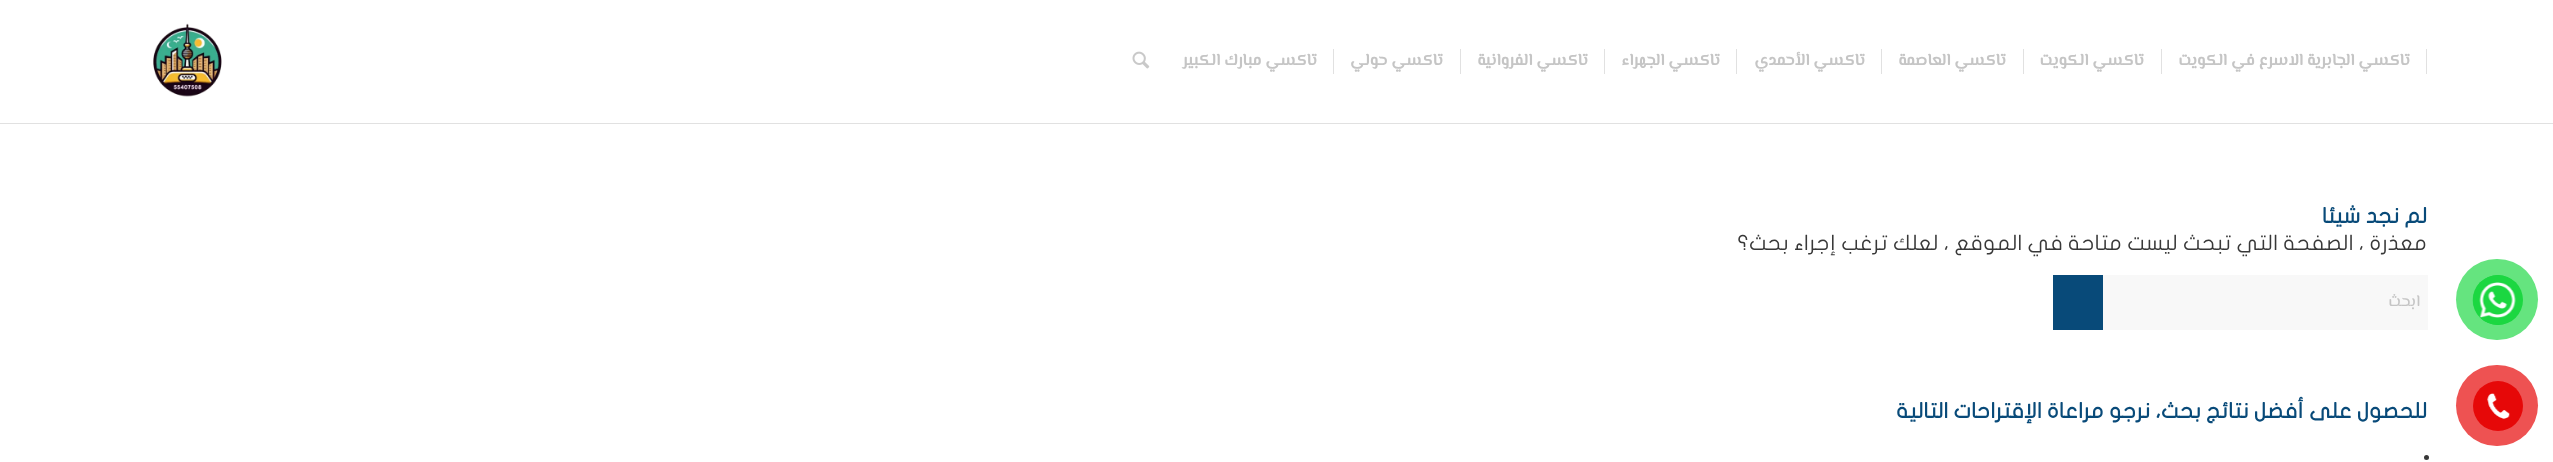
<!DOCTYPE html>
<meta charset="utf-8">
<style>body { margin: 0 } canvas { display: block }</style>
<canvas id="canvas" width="2553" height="462"></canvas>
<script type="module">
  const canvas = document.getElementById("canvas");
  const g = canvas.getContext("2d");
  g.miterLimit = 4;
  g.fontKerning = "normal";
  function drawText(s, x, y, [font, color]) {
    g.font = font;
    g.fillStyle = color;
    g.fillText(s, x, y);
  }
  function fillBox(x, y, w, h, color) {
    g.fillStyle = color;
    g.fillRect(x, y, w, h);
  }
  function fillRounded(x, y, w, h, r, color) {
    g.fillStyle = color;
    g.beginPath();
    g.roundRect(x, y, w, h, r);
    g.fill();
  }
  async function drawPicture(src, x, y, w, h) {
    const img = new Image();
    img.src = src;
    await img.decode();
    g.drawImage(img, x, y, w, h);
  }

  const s1 = ["bold 16.25px El Messiri", "#C5C5C5"];
  const s2 = ["bold 21.25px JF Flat", "#084A79"];
  const s3 = ["21.25px JF Flat", "#383838"];
  const s4 = ["500 16.25px El Messiri", "#C5C5C5"];

  fillBox(0, 0, 2553, 462, "#FFFFFF");
  fillRounded(2456, 259, 82, 81, 40.5, "#65E47F");
  g.fillStyle = "#1CD741";
  g.beginPath();
  g.arc(2498, 300, 25, 0, Math.PI * 2);
  g.fill();
  await drawPicture("pic1.png", 2472, 275, 44, 50);
  fillRounded(2456, 365, 82, 81, 40.5, "#EE5252");
  g.fillStyle = "#E60808";
  g.beginPath();
  g.arc(2498, 406, 25, 0, Math.PI * 2);
  g.fill();
  await drawPicture("pic2.png", 2487, 393, 23, 26);
  fillBox(0, 123, 2553, 1, "#E1E1E1");
  g.direction = "rtl";
  drawText("تاكسي الجابرية الاسرع في الكويت", 2410, 65, s1);
  fillBox(2426, 49, 1, 25, "#E1E1E1");
  drawText("تاكسي الكويت", 2144, 65, s1);
  fillBox(2161, 49, 1, 25, "#E1E1E1");
  drawText("تاكسي العاصمة", 2006, 65, s1);
  fillBox(2023, 49, 1, 25, "#E1E1E1");
  drawText("تاكسي الأحمدي", 1865, 65, s1);
  fillBox(1881, 49, 1, 25, "#E1E1E1");
  drawText("تاكسي الجهراء", 1720, 65, s1);
  fillBox(1736, 49, 1, 25, "#E1E1E1");
  drawText("تاكسي الفروانية", 1588, 65, s1);
  fillBox(1604, 49, 1, 25, "#E1E1E1");
  drawText("تاكسي حولي", 1443, 65, s1);
  fillBox(1460, 49, 1, 25, "#E1E1E1");
  drawText("تاكسي مبارك الكبير", 1317, 65, s1);
  fillBox(1333, 49, 1, 25, "#E1E1E1");
  await drawPicture("pic3.png", 1132, 51, 18, 18);
  await drawPicture("pic4.png", 153, 23, 69, 74);
  drawText("لم نجد شيئا", 2427, 223, s2);
  drawText("معذرة ، الصفحة التي تبحث ليست متاحة", 2427, 250, s3);
  drawText("في الموقع ، لعلك ترغب إجراء بحث؟", 2063, 250, s3);
  fillBox(2103, 275, 325, 55, "#F8F8F8");
  drawText("ابحث", 2420, 306, s4);
  fillBox(2053, 275, 50, 55, "#084A79");
  drawText("للحصول على أفضل نتائج بحث، نرجو مراعاة الإقتراحات التالية", 2427, 418, s2);
  g.fillStyle = "#383838";
  g.beginPath();
  g.arc(2426.5, 457.5, 2.5, 0, Math.PI * 2);
  g.fill();
</script>
